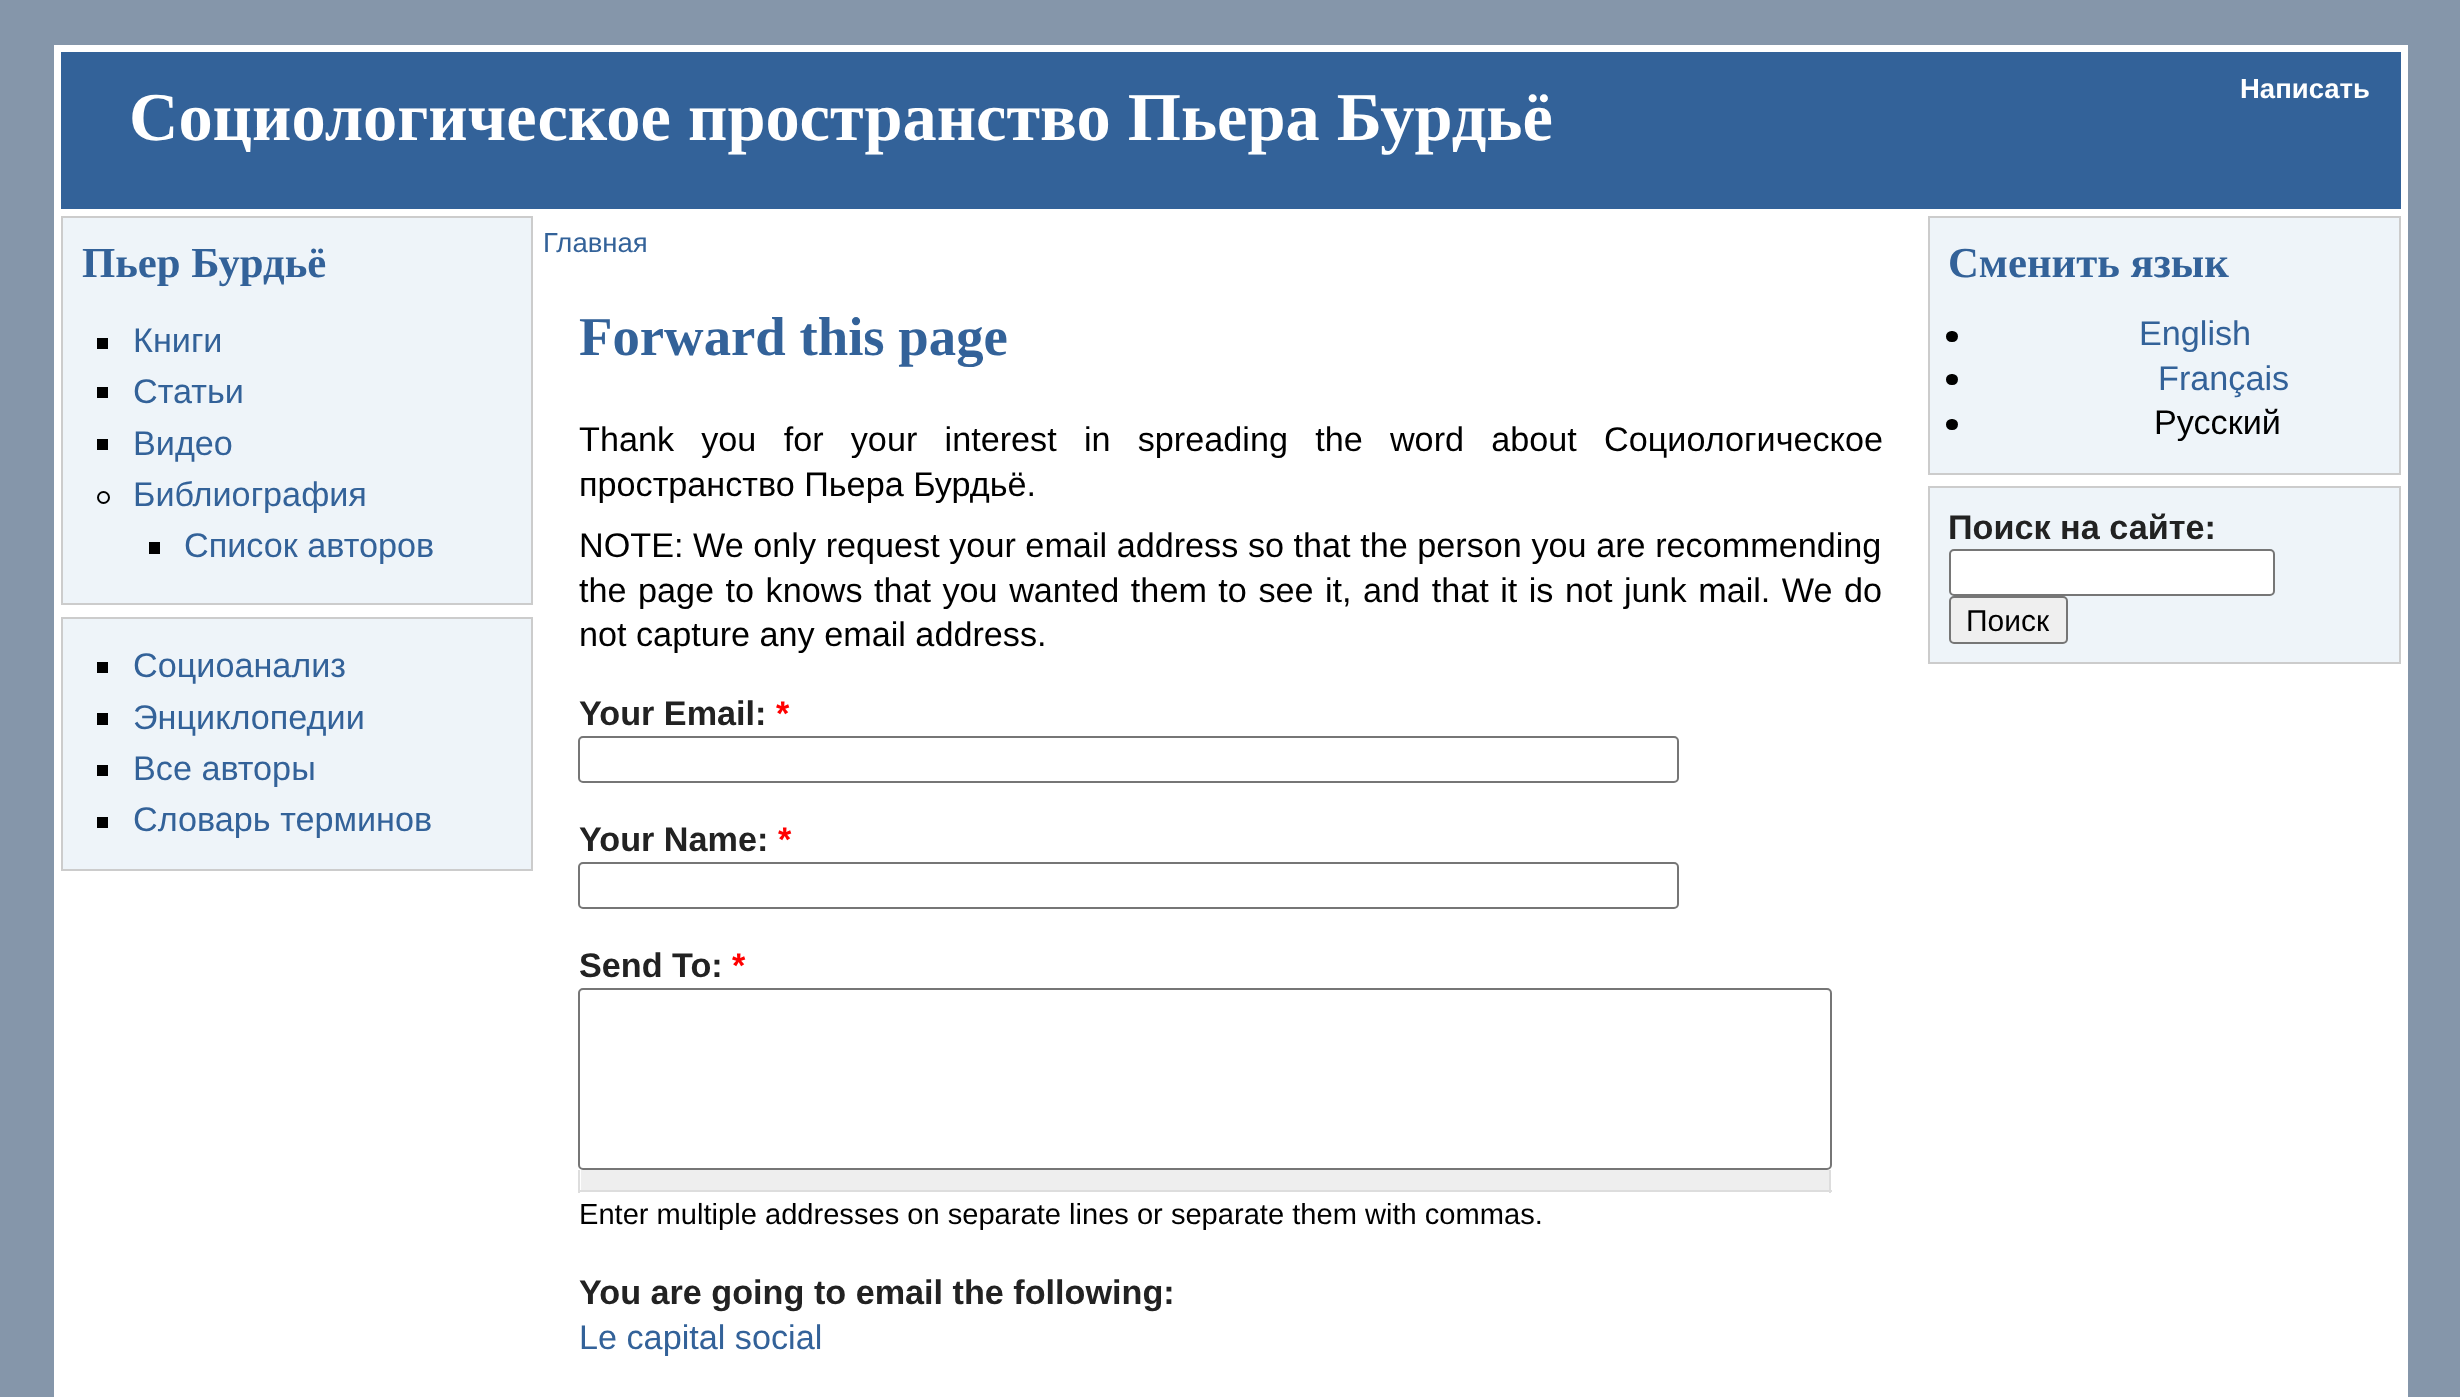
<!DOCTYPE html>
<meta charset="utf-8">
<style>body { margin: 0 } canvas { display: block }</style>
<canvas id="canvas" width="2460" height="1397"></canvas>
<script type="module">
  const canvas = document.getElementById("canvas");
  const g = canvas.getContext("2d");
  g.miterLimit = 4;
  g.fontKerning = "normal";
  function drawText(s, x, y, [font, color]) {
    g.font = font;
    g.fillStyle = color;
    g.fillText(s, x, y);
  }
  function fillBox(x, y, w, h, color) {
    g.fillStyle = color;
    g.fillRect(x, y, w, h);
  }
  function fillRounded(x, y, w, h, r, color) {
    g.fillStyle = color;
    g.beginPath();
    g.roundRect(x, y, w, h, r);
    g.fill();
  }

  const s1 = ["bold 27.5px Liberation Sans", "#FFFFFF"];
  const s2 = ["bold 68.4px Liberation Serif", "#FFFFFF"];
  const s3 = ["bold 42.75px Liberation Serif", "#336299"];
  const s4 = ["34.2px Liberation Sans", "#336299"];
  const s5 = ["27.5px Liberation Sans", "#336299"];
  const s6 = ["bold 54.75px Liberation Serif", "#336299"];
  const s7 = ["34.2px Liberation Sans", "#000000"];
  const s8 = ["bold 34.2px Liberation Sans", "#222222"];
  const s9 = ["bold 34.2px Liberation Sans", "#FF0000"];
  const s10 = ["29.1px Liberation Sans", "#000000"];
  const s11 = ["30px Liberation Sans", "#000000"];

  fillBox(0, 0, 2460, 1397, "#8596AA");
  fillBox(54, 45, 2354, 1352, "#FFFFFF");
  fillBox(61, 52, 2340, 157, "#336299");
  drawText("Написать", 2240, 98, s1);
  drawText("Социологическое пространство Пьера Бурдьё", 129, 140, s2);
  g.fillStyle = "#EEF4F9";
  g.beginPath();
  g.rect(62, 217, 470, 387);
  g.fill();
  g.strokeStyle = "#CCCCCC";
  g.lineWidth = 2;
  g.stroke();
  drawText("Пьер Бурдьё", 82, 277, s3);
  fillBox(97, 338, 11, 11, "#000000");
  drawText("Книги", 133, 352, s4);
  fillBox(97, 387, 11, 11, "#000000");
  drawText("Статьи", 133, 403, s4);
  fillBox(97, 439, 11, 11, "#000000");
  drawText("Видео", 133, 455, s4);
  g.beginPath();
  g.arc(103.5, 497.5, 5.5, 0, Math.PI * 2);
  g.strokeStyle = "#000000";
  g.stroke();
  drawText("Библиография", 133, 506, s4);
  fillBox(149, 542, 11, 12, "#000000");
  drawText("Список авторов", 184, 557, s4);
  g.fillStyle = "#EEF4F9";
  g.beginPath();
  g.rect(62, 618, 470, 252);
  g.fill();
  g.strokeStyle = "#CCCCCC";
  g.stroke();
  fillBox(97, 662, 11, 11, "#000000");
  drawText("Социоанализ", 133, 677, s4);
  fillBox(97, 713, 11, 12, "#000000");
  drawText("Энциклопедии", 133, 729, s4);
  fillBox(97, 765, 11, 11, "#000000");
  drawText("Все авторы", 133, 780, s4);
  fillBox(97, 817, 11, 11, "#000000");
  drawText("Словарь терминов", 133, 831, s4);
  drawText("Главная", 543, 252, s5);
  drawText("Forward this page", 579, 355, s6);
  g.wordSpacing = "17.75px";
  drawText("Thank you for your interest in spreading the word about Социологическое", 579, 451, s7);
  g.wordSpacing = "0px";
  drawText("пространство Пьера Бурдьё.", 579, 496, s7);
  g.wordSpacing = "0.1px";
  drawText("NOTE: We only request your email address so that the person you are recommending", 579, 557, s7);
  g.wordSpacing = "2px";
  drawText("the page to knows that you wanted them to see it, and that it is not junk mail. We do", 579, 602, s7);
  g.wordSpacing = "0px";
  drawText("not capture any email address.", 579, 646, s7);
  drawText("Your Email:", 579, 725, s8);
  drawText("*", 776, 725, s9);
  g.beginPath();
  g.roundRect(579, 737, 1099, 45, 4);
  g.strokeStyle = "#767676";
  g.stroke();
  drawText("Your Name:", 579, 851, s8);
  drawText("*", 778, 851, s9);
  g.beginPath();
  g.roundRect(579, 863, 1099, 45, 4);
  g.stroke();
  drawText("Send To:", 579, 977, s8);
  drawText("*", 732, 977, s9);
  g.beginPath();
  g.roundRect(579, 989, 1252, 180, 4);
  g.stroke();
  fillBox(581, 1170, 1248, 20, "#EEEEEE");
  fillBox(1829, 1170, 2, 23, "#DDDDDD");
  fillBox(578, 1190, 1254, 2, "#DDDDDD");
  fillBox(578, 1170, 2, 23, "#DDDDDD");
  drawText("Enter multiple addresses on separate lines or separate them with commas.", 579, 1224, s10);
  drawText("You are going to email the following:", 579, 1304, s8);
  drawText("Le capital social", 579, 1349, s4);
  g.fillStyle = "#EEF4F9";
  g.beginPath();
  g.rect(1929, 217, 471, 257);
  g.fill();
  g.strokeStyle = "#CCCCCC";
  g.stroke();
  drawText("Сменить язык", 1948, 277, s3);
  fillRounded(1946, 331, 12, 11, 5.5, "#000000");
  drawText("English", 2139, 345, s4);
  fillRounded(1946, 374, 12, 11, 5.5, "#000000");
  drawText("Français", 2158, 390, s4);
  fillRounded(1946, 419, 12, 11, 5.5, "#000000");
  drawText("Русский", 2154, 434, s7);
  g.fillStyle = "#EEF4F9";
  g.beginPath();
  g.rect(1929, 487, 471, 176);
  g.fill();
  g.stroke();
  drawText("Поиск на сайте:", 1948, 539, s8);
  g.fillStyle = "#FFFFFF";
  g.beginPath();
  g.roundRect(1950, 550, 324, 45, 4);
  g.fill();
  g.strokeStyle = "#767676";
  g.stroke();
  g.fillStyle = "#EFEFEF";
  g.beginPath();
  g.roundRect(1950, 597, 117, 46, 4);
  g.fill();
  g.stroke();
  drawText("Поиск", 1966, 631, s11);
</script>
